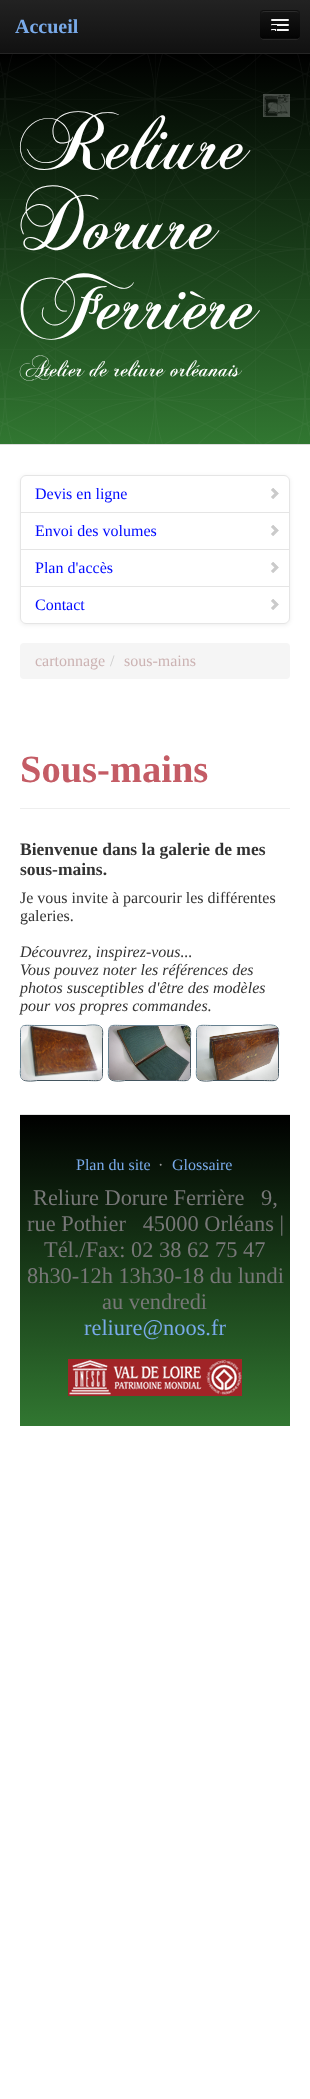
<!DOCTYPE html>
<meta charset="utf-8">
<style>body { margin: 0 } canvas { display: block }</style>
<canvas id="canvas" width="310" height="2099"></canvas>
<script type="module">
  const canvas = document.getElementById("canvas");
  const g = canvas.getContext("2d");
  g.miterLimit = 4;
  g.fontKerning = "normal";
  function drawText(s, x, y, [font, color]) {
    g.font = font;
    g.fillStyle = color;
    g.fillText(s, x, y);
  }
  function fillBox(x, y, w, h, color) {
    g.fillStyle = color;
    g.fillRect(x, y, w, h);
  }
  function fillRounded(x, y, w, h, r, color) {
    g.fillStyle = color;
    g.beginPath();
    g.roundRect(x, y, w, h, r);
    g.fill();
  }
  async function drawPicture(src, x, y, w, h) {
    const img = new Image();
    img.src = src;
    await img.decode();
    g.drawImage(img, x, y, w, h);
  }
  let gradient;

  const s1 = ["bold 20px Liberation Serif", "#79AAE9"];
  const s2 = ["500 80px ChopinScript", "#FFFFFF"];
  const s3 = ["500 24px ChopinScript", "#FFFFFF"];
  const s4 = ["16px Liberation Serif", "#000AFF"];
  const s5 = ["16px Liberation Serif", "#CCB3B3"];
  const s6 = ["16px Liberation Serif", "#CCCCCC"];
  const s7 = ["bold 38.5px Liberation Serif", "#C45C65"];
  const s8 = ["bold 17.5px Liberation Serif", "#333333"];
  const s9 = ["16px Liberation Serif", "#333333"];
  const s10 = ["italic 16px Liberation Serif", "#333333"];
  const s11 = ["16px Liberation Serif", "#79AAE9"];
  const s12 = ["16px Liberation Serif", "#999999"];
  const s13 = ["22.4px Liberation Serif", "#777777"];
  const s14 = ["22.4px Liberation Serif", "#79AAE9"];

  fillBox(0, 0, 310, 2099, "#FFFFFF");
  gradient = g.createLinearGradient(155, 0, 155, 53);
  gradient.addColorStop(0, "#222222");
  gradient.addColorStop(1, "#111111");
  g.fillStyle = gradient;
  g.fillRect(0, 0, 310, 53);
  fillBox(0, 53, 310, 1, "#252525");
  drawText("Accueil", 15, 33, s1);
  g.fillStyle = "#272727";
  g.beginPath();
  g.moveTo(260, 35);
  g.bezierCurveTo(260, 41, 265, 40, 269, 40);
  g.lineTo(291, 40);
  g.bezierCurveTo(295, 40, 300, 41, 300, 35);
  g.bezierCurveTo(300, 37, 298, 39, 296, 39);
  g.lineTo(264, 39);
  g.bezierCurveTo(262, 39, 260, 37, 260, 35);
  g.closePath();
  g.fill();
  fillRounded(260, 10, 40, 29, 4, "#0E0E0E");
  g.save();
  g.beginPath();
  g.roundRect(260, 10, 40, 29, 4);
  g.clip();
  gradient = g.createLinearGradient(280, 11, 280, 38);
  gradient.addColorStop(0, "#151515");
  gradient.addColorStop(1, "#040404");
  g.fillStyle = gradient;
  g.fillRect(260, 11, 40, 27);
  g.restore();
  g.fillStyle = "#2C2C2C";
  g.beginPath();
  g.moveTo(264, 12);
  g.lineTo(296, 12);
  g.bezierCurveTo(298, 12, 299, 13, 299, 15);
  g.bezierCurveTo(299, 10, 295, 11, 290.5, 11);
  g.lineTo(269.5, 11);
  g.bezierCurveTo(265, 11, 261, 10, 261, 15);
  g.bezierCurveTo(261, 13, 262, 12, 264, 12);
  g.closePath();
  g.fill();
  g.beginPath();
  g.moveTo(298.5, 37.5);
  g.bezierCurveTo(298, 38, 297, 38.5, 296, 38.5);
  g.lineTo(264, 38.5);
  g.bezierCurveTo(263, 38.5, 262, 38, 261.5, 37.5);
  g.strokeStyle = "rgba(0, 0, 0, 0.25)";
  g.stroke();
  g.fillStyle = "#0B0B0B";
  g.beginPath();
  g.moveTo(271, 20.5);
  g.bezierCurveTo(270, 22.5, 274.5, 22, 274.5, 22);
  g.lineTo(285.5, 22);
  g.bezierCurveTo(285.5, 22, 290, 22.5, 289, 20.5);
  g.bezierCurveTo(288, 21.5, 281.5, 21, 280, 21);
  g.bezierCurveTo(278.5, 21, 272, 21.5, 271, 20.5);
  g.closePath();
  g.fill();
  fillRounded(271, 19, 18, 2, 1, "#F5F5F5");
  g.fillStyle = "#080808";
  g.beginPath();
  g.moveTo(271, 25.5);
  g.bezierCurveTo(270, 27.5, 274.5, 27, 274.5, 27);
  g.lineTo(285.5, 27);
  g.bezierCurveTo(285.5, 27, 290, 27.5, 289, 25.5);
  g.bezierCurveTo(288, 26.5, 281.5, 26, 280, 26);
  g.bezierCurveTo(278.5, 26, 272, 26.5, 271, 25.5);
  g.closePath();
  g.fill();
  fillRounded(271, 24, 18, 2, 1, "#F5F5F5");
  await drawPicture("pic1.png", 271, 25, 6, 1);
  fillRounded(271, 29, 18, 2, 1, "#F5F5F5");
  await drawPicture("pic2.png", 271, 29, 6, 2);
  gradient = g.createLinearGradient(155, 444, 155, 54);
  gradient.addColorStop(0, "#317731");
  gradient.addColorStop(1, "#000000");
  g.fillStyle = gradient;
  g.fillRect(0, 54, 310, 390);
  fillBox(0, 444, 310, 1, "#DDDDDD");
  await drawPicture("pic3.png", 0, 54, 310, 390);
  await drawPicture("pic4.png", 263, 94, 27, 23);
  g.letterSpacing = "-1px";
  drawText("Reliure", 20, 168, s2);
  drawText("Dorure", 20, 248, s2);
  drawText("Ferrière", 20, 328, s2);
  g.letterSpacing = "0px";
  drawText("Atelier de reliure orléanais", 20, 376, s3);
  g.fillStyle = "rgba(0, 0, 0, 0.07)";
  g.filter = "blur(2px)";
  g.beginPath();
  g.roundRect(20, 476, 270, 149, 6);
  g.fill();
  g.filter = "none";
  fillRounded(20, 475, 270, 149, 6, "#FFFFFF");
  g.beginPath();
  g.roundRect(20.5, 475.5, 269, 37, [5.5, 5.5, 0, 0]);
  g.strokeStyle = "#E5E5E5";
  g.stroke();
  drawText("Devis en ligne", 35, 499, s4);
  await drawPicture("pic5.png", 271, 488, 8, 11);
  g.strokeRect(20.5, 512.5, 269, 37);
  drawText("Envoi des volumes", 35, 536, s4);
  await drawPicture("pic5.png", 271, 525, 8, 11);
  g.strokeRect(20.5, 549.5, 269, 37);
  drawText("Plan d'accès", 35, 573, s4);
  await drawPicture("pic5.png", 271, 562, 8, 11);
  g.beginPath();
  g.roundRect(20.5, 586.5, 269, 37, [0, 0, 5.5, 5.5]);
  g.stroke();
  drawText("Contact", 35, 610, s4);
  await drawPicture("pic5.png", 271, 599, 8, 11);
  fillRounded(20, 643, 270, 36, 4, "#F5F5F5");
  drawText("cartonnage", 35, 666, s5);
  drawText("/", 110, 666, s6);
  drawText("sous-mains", 124, 666, s5);
  fillBox(20, 808, 270, 1, "#EEEEEE");
  drawText("Sous-mains", 20, 782, s7);
  drawText("Bienvenue dans la galerie de mes", 20, 855, s8);
  drawText("sous-mains.", 20, 875, s8);
  drawText("Je vous invite à parcourir les différentes", 20, 903, s9);
  drawText("galeries.", 20, 921, s9);
  drawText("Découvrez, inspirez-vous...", 20, 957, s10);
  drawText("Vous pouvez noter les références des", 20, 975, s10);
  drawText("photos susceptibles d'être des modèles", 20, 993, s10);
  drawText("pour vos propres commandes.", 20, 1011, s10);
  g.beginPath();
  g.moveTo(101, 1027);
  g.bezierCurveTo(103.5, 1029.5, 102.5, 1035.5, 102.5, 1037.5);
  g.lineTo(102.5, 1068.5);
  g.bezierCurveTo(102.5, 1083, 102, 1080.5, 86, 1080.5);
  g.lineTo(37, 1080.5);
  g.bezierCurveTo(37, 1080.5, 25, 1082.5, 22, 1079);
  g.strokeStyle = "#43555F";
  g.stroke();
  g.beginPath();
  g.moveTo(22, 1079);
  g.bezierCurveTo(19.5, 1076.5, 20.5, 1070.5, 20.5, 1068.5);
  g.lineTo(20.5, 1037.5);
  g.bezierCurveTo(20.5, 1023, 21, 1025.5, 37, 1025.5);
  g.lineTo(86, 1025.5);
  g.bezierCurveTo(86, 1025.5, 98, 1023.5, 101, 1027);
  g.strokeStyle = "#65808F";
  g.stroke();
  g.beginPath();
  g.moveTo(189, 1027);
  g.bezierCurveTo(191.5, 1029.5, 190.5, 1035.5, 190.5, 1037.5);
  g.lineTo(190.5, 1068.5);
  g.bezierCurveTo(190.5, 1083, 190, 1080.5, 174, 1080.5);
  g.lineTo(125, 1080.5);
  g.bezierCurveTo(125, 1080.5, 113, 1082.5, 110, 1079);
  g.strokeStyle = "#43555F";
  g.stroke();
  g.beginPath();
  g.moveTo(110, 1079);
  g.bezierCurveTo(107.5, 1076.5, 108.5, 1070.5, 108.5, 1068.5);
  g.lineTo(108.5, 1037.5);
  g.bezierCurveTo(108.5, 1023, 109, 1025.5, 125, 1025.5);
  g.lineTo(174, 1025.5);
  g.bezierCurveTo(174, 1025.5, 186, 1023.5, 189, 1027);
  g.strokeStyle = "#65808F";
  g.stroke();
  g.beginPath();
  g.moveTo(277, 1027);
  g.bezierCurveTo(279.5, 1029.5, 278.5, 1035.5, 278.5, 1037.5);
  g.lineTo(278.5, 1068.5);
  g.bezierCurveTo(278.5, 1083, 278, 1080.5, 262, 1080.5);
  g.lineTo(213, 1080.5);
  g.bezierCurveTo(213, 1080.5, 201, 1082.5, 198, 1079);
  g.strokeStyle = "#43555F";
  g.stroke();
  g.beginPath();
  g.moveTo(198, 1079);
  g.bezierCurveTo(195.5, 1076.5, 196.5, 1070.5, 196.5, 1068.5);
  g.lineTo(196.5, 1037.5);
  g.bezierCurveTo(196.5, 1023, 197, 1025.5, 213, 1025.5);
  g.lineTo(262, 1025.5);
  g.bezierCurveTo(262, 1025.5, 274, 1023.5, 277, 1027);
  g.strokeStyle = "#65808F";
  g.stroke();
  await drawPicture("pic6.png", 21, 1026, 81, 54);
  await drawPicture("pic7.png", 109, 1026, 81, 54);
  await drawPicture("pic8.png", 197, 1026, 81, 54);
  gradient = g.createLinearGradient(155, 1426, 155, 1115);
  gradient.addColorStop(0, "#317731");
  gradient.addColorStop(1, "#000000");
  g.fillStyle = gradient;
  g.fillRect(20, 1115, 270, 311);
  fillBox(20, 1114, 270, 1, "#E5E5E5");
  drawText("Plan du site", 76, 1170, s11);
  drawText("·", 158, 1170, s12);
  drawText("Glossaire", 172, 1170, s11);
  drawText("Reliure Dorure Ferrière", 33, 1205, s13);
  drawText("9,", 261, 1205, s13);
  drawText("rue Pothier   45000 Orléans |", 27, 1231, s13);
  drawText("Tél./Fax: 02 38 62 75 47", 44, 1257, s13);
  drawText("8h30-12h 13h30-18 du lundi", 27, 1283, s13);
  drawText("au vendredi", 102, 1309, s13);
  drawText("reliure@noos.fr", 84, 1335, s14);
  await drawPicture("pic9.png", 68, 1359, 174, 37);
</script>
